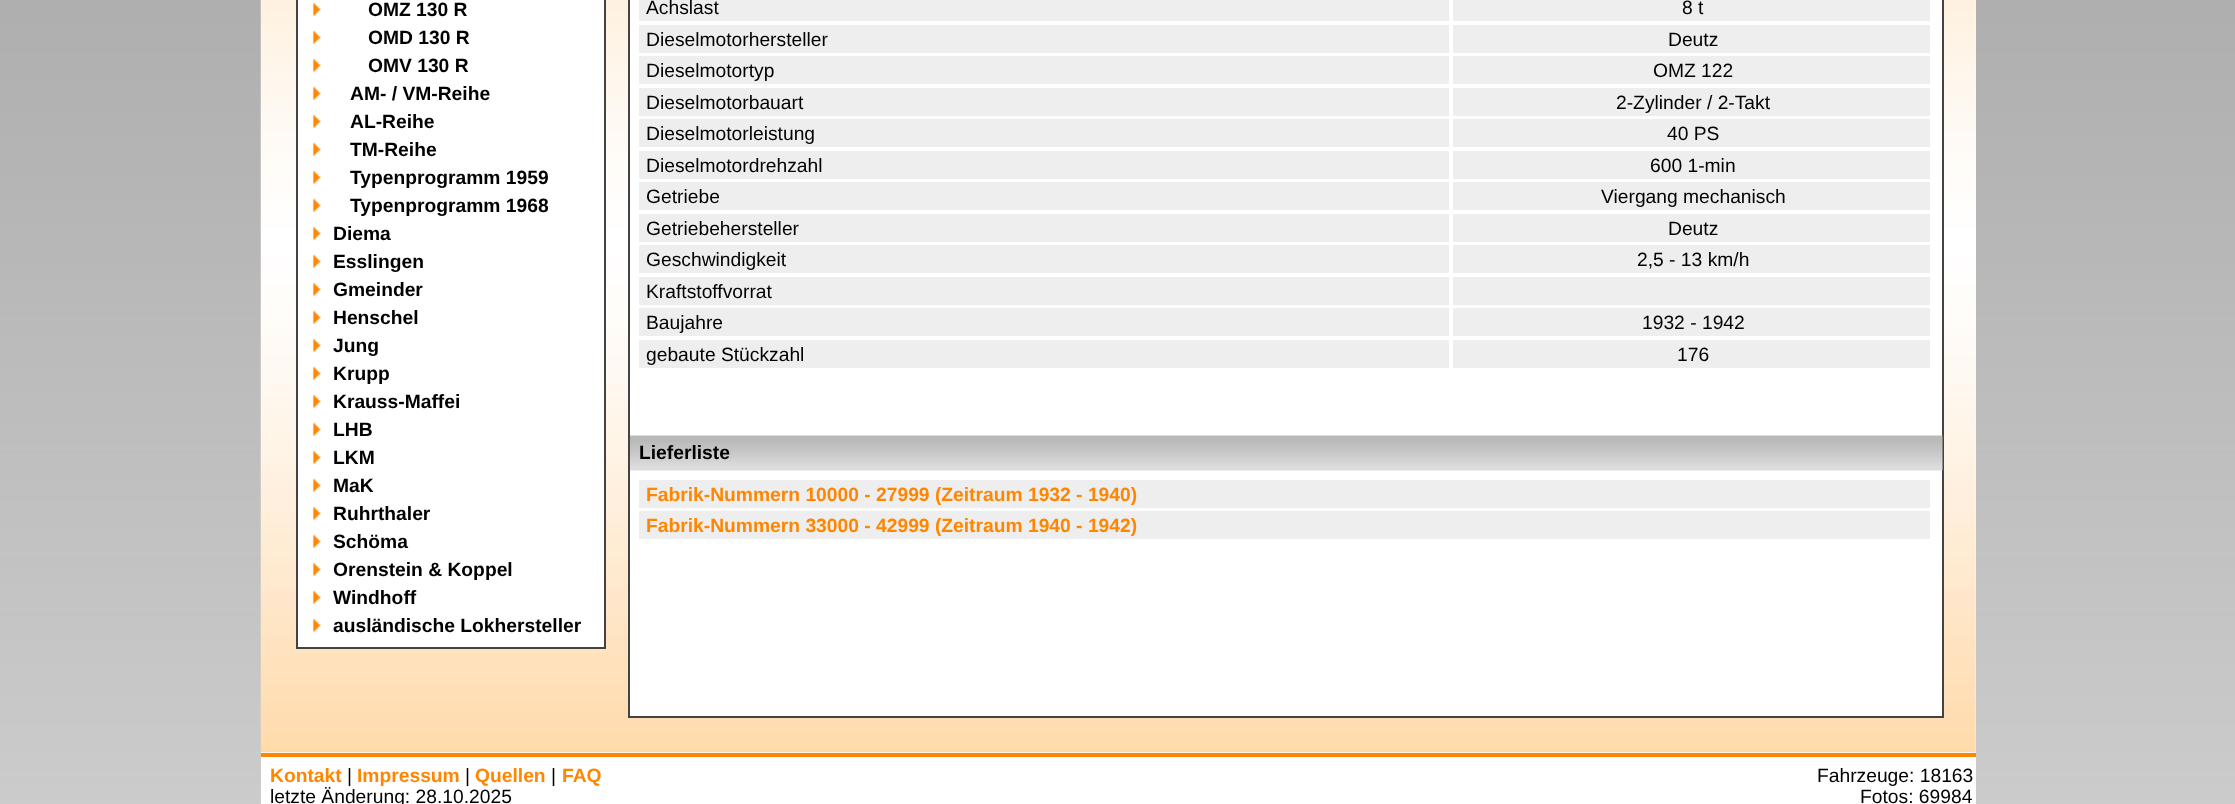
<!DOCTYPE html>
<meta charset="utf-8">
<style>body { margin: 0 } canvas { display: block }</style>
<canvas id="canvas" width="2235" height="804"></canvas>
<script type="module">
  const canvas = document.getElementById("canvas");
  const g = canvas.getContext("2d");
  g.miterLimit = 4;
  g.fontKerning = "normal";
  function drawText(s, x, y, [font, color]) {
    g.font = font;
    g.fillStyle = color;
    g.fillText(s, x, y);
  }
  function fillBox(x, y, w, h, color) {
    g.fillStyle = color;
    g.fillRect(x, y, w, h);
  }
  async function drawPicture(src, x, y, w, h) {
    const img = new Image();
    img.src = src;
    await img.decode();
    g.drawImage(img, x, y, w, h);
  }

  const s1 = ["bold 19.25px Liberation Sans", "#000000"];
  const s2 = ["19.25px Liberation Sans", "#000000"];
  const s3 = ["bold 19.25px Liberation Sans", "#FF8600"];

  fillBox(0, 0, 2235, 804, "#FFFFFF");
  await drawPicture("pic1.png", 0, 0, 2235, 804);
  fillBox(261, 0, 1715, 753, "#FFFFFF");
  await drawPicture("pic2.png", 260, 0, 1716, 753);
  g.beginPath();
  g.rect(297, -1, 308, 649);
  g.fill();
  g.strokeStyle = "#434343";
  g.lineWidth = 2;
  g.stroke();
  await drawPicture("pic3.png", 312, 2, 9, 14);
  drawText("OMZ 130 R", 368, 16, s1);
  await drawPicture("pic3.png", 312, 30, 9, 14);
  drawText("OMD 130 R", 368, 44, s1);
  await drawPicture("pic3.png", 312, 58, 9, 14);
  drawText("OMV 130 R", 368, 72, s1);
  await drawPicture("pic3.png", 312, 86, 9, 14);
  drawText("AM- / VM-Reihe", 350, 100, s1);
  await drawPicture("pic3.png", 312, 114, 9, 14);
  drawText("AL-Reihe", 350, 128, s1);
  await drawPicture("pic3.png", 312, 142, 9, 14);
  drawText("TM-Reihe", 350, 156, s1);
  await drawPicture("pic3.png", 312, 170, 9, 14);
  drawText("Typenprogramm 1959", 350, 184, s1);
  await drawPicture("pic3.png", 312, 198, 9, 14);
  drawText("Typenprogramm 1968", 350, 212, s1);
  await drawPicture("pic3.png", 312, 226, 9, 14);
  drawText("Diema", 333, 240, s1);
  await drawPicture("pic3.png", 312, 254, 9, 14);
  drawText("Esslingen", 333, 268, s1);
  await drawPicture("pic3.png", 312, 282, 9, 14);
  drawText("Gmeinder", 333, 296, s1);
  await drawPicture("pic3.png", 312, 310, 9, 14);
  drawText("Henschel", 333, 324, s1);
  await drawPicture("pic3.png", 312, 338, 9, 14);
  drawText("Jung", 333, 352, s1);
  await drawPicture("pic3.png", 312, 366, 9, 14);
  drawText("Krupp", 333, 380, s1);
  await drawPicture("pic3.png", 312, 394, 9, 14);
  drawText("Krauss-Maffei", 333, 408, s1);
  await drawPicture("pic3.png", 312, 422, 9, 14);
  drawText("LHB", 333, 436, s1);
  await drawPicture("pic3.png", 312, 450, 9, 14);
  drawText("LKM", 333, 464, s1);
  await drawPicture("pic3.png", 312, 478, 9, 14);
  drawText("MaK", 333, 492, s1);
  await drawPicture("pic3.png", 312, 506, 9, 14);
  drawText("Ruhrthaler", 333, 520, s1);
  await drawPicture("pic3.png", 312, 534, 9, 14);
  drawText("Schöma", 333, 548, s1);
  await drawPicture("pic3.png", 312, 562, 9, 14);
  drawText("Orenstein & Koppel", 333, 576, s1);
  await drawPicture("pic3.png", 312, 590, 9, 14);
  drawText("Windhoff", 333, 604, s1);
  await drawPicture("pic3.png", 312, 618, 9, 14);
  drawText("ausländische Lokhersteller", 333, 632, s1);
  g.fillStyle = "#FFFFFF";
  g.beginPath();
  g.rect(629, -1, 1314, 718);
  g.fill();
  g.stroke();
  fillBox(639, 0, 810, 21, "#EEEEEE");
  drawText("Achslast", 646, 14, s2);
  fillBox(1453, 0, 477, 21, "#EEEEEE");
  drawText("8 t", 1682, 14, s2);
  fillBox(639, 25, 810, 28, "#EEEEEE");
  drawText("Dieselmotorhersteller", 646, 46, s2);
  fillBox(1453, 25, 477, 28, "#EEEEEE");
  drawText("Deutz", 1668, 46, s2);
  fillBox(639, 56, 810, 28, "#EEEEEE");
  drawText("Dieselmotortyp", 646, 77, s2);
  fillBox(1453, 56, 477, 28, "#EEEEEE");
  drawText("OMZ 122", 1653, 77, s2);
  fillBox(639, 88, 810, 28, "#EEEEEE");
  drawText("Dieselmotorbauart", 646, 109, s2);
  fillBox(1453, 88, 477, 28, "#EEEEEE");
  drawText("2-Zylinder / 2-Takt", 1616, 109, s2);
  fillBox(639, 119, 810, 28, "#EEEEEE");
  drawText("Dieselmotorleistung", 646, 140, s2);
  fillBox(1453, 119, 477, 28, "#EEEEEE");
  drawText("40 PS", 1667, 140, s2);
  fillBox(639, 151, 810, 28, "#EEEEEE");
  drawText("Dieselmotordrehzahl", 646, 172, s2);
  fillBox(1453, 151, 477, 28, "#EEEEEE");
  drawText("600 1-min", 1650, 172, s2);
  fillBox(639, 182, 810, 28, "#EEEEEE");
  drawText("Getriebe", 646, 203, s2);
  fillBox(1453, 182, 477, 28, "#EEEEEE");
  drawText("Viergang mechanisch", 1601, 203, s2);
  fillBox(639, 214, 810, 28, "#EEEEEE");
  drawText("Getriebehersteller", 646, 235, s2);
  fillBox(1453, 214, 477, 28, "#EEEEEE");
  drawText("Deutz", 1668, 235, s2);
  fillBox(639, 245, 810, 28, "#EEEEEE");
  drawText("Geschwindigkeit", 646, 266, s2);
  fillBox(1453, 245, 477, 28, "#EEEEEE");
  drawText("2,5 - 13 km/h", 1637, 266, s2);
  fillBox(639, 277, 810, 28, "#EEEEEE");
  drawText("Kraftstoffvorrat", 646, 298, s2);
  fillBox(1453, 277, 477, 28, "#EEEEEE");
  fillBox(639, 308, 810, 28, "#EEEEEE");
  drawText("Baujahre", 646, 329, s2);
  fillBox(1453, 308, 477, 28, "#EEEEEE");
  drawText("1932 - 1942", 1642, 329, s2);
  fillBox(639, 340, 810, 28, "#EEEEEE");
  drawText("gebaute Stückzahl", 646, 361, s2);
  fillBox(1453, 340, 477, 28, "#EEEEEE");
  drawText("176", 1677, 361, s2);
  await drawPicture("pic4.png", 630, 435, 1313, 36);
  drawText("Lieferliste", 639, 459, s1);
  fillBox(639, 480, 1291, 28, "#EEEEEE");
  drawText("Fabrik-Nummern 10000 - 27999 (Zeitraum 1932 - 1940)", 646, 501, s3);
  fillBox(639, 511, 1291, 28, "#EEEEEE");
  drawText("Fabrik-Nummern 33000 - 42999 (Zeitraum 1940 - 1942)", 646, 532, s3);
  fillBox(261, 757, 1715, 47, "#FFFFFF");
  fillBox(261, 753, 1715, 4, "#FF8600");
  drawText("Kontakt", 270, 782, s3);
  drawText("|", 347, 782, s2);
  drawText("Impressum", 357, 782, s3);
  drawText("|", 465, 782, s2);
  drawText("Quellen", 475, 782, s3);
  drawText("|", 551, 782, s2);
  drawText("FAQ", 562, 782, s3);
  drawText("letzte Änderung: 28.10.2025", 270, 803, s2);
  drawText("Fahrzeuge: 18163", 1817, 782, s2);
  drawText("Fotos: 69984", 1860, 803, s2);
</script>
